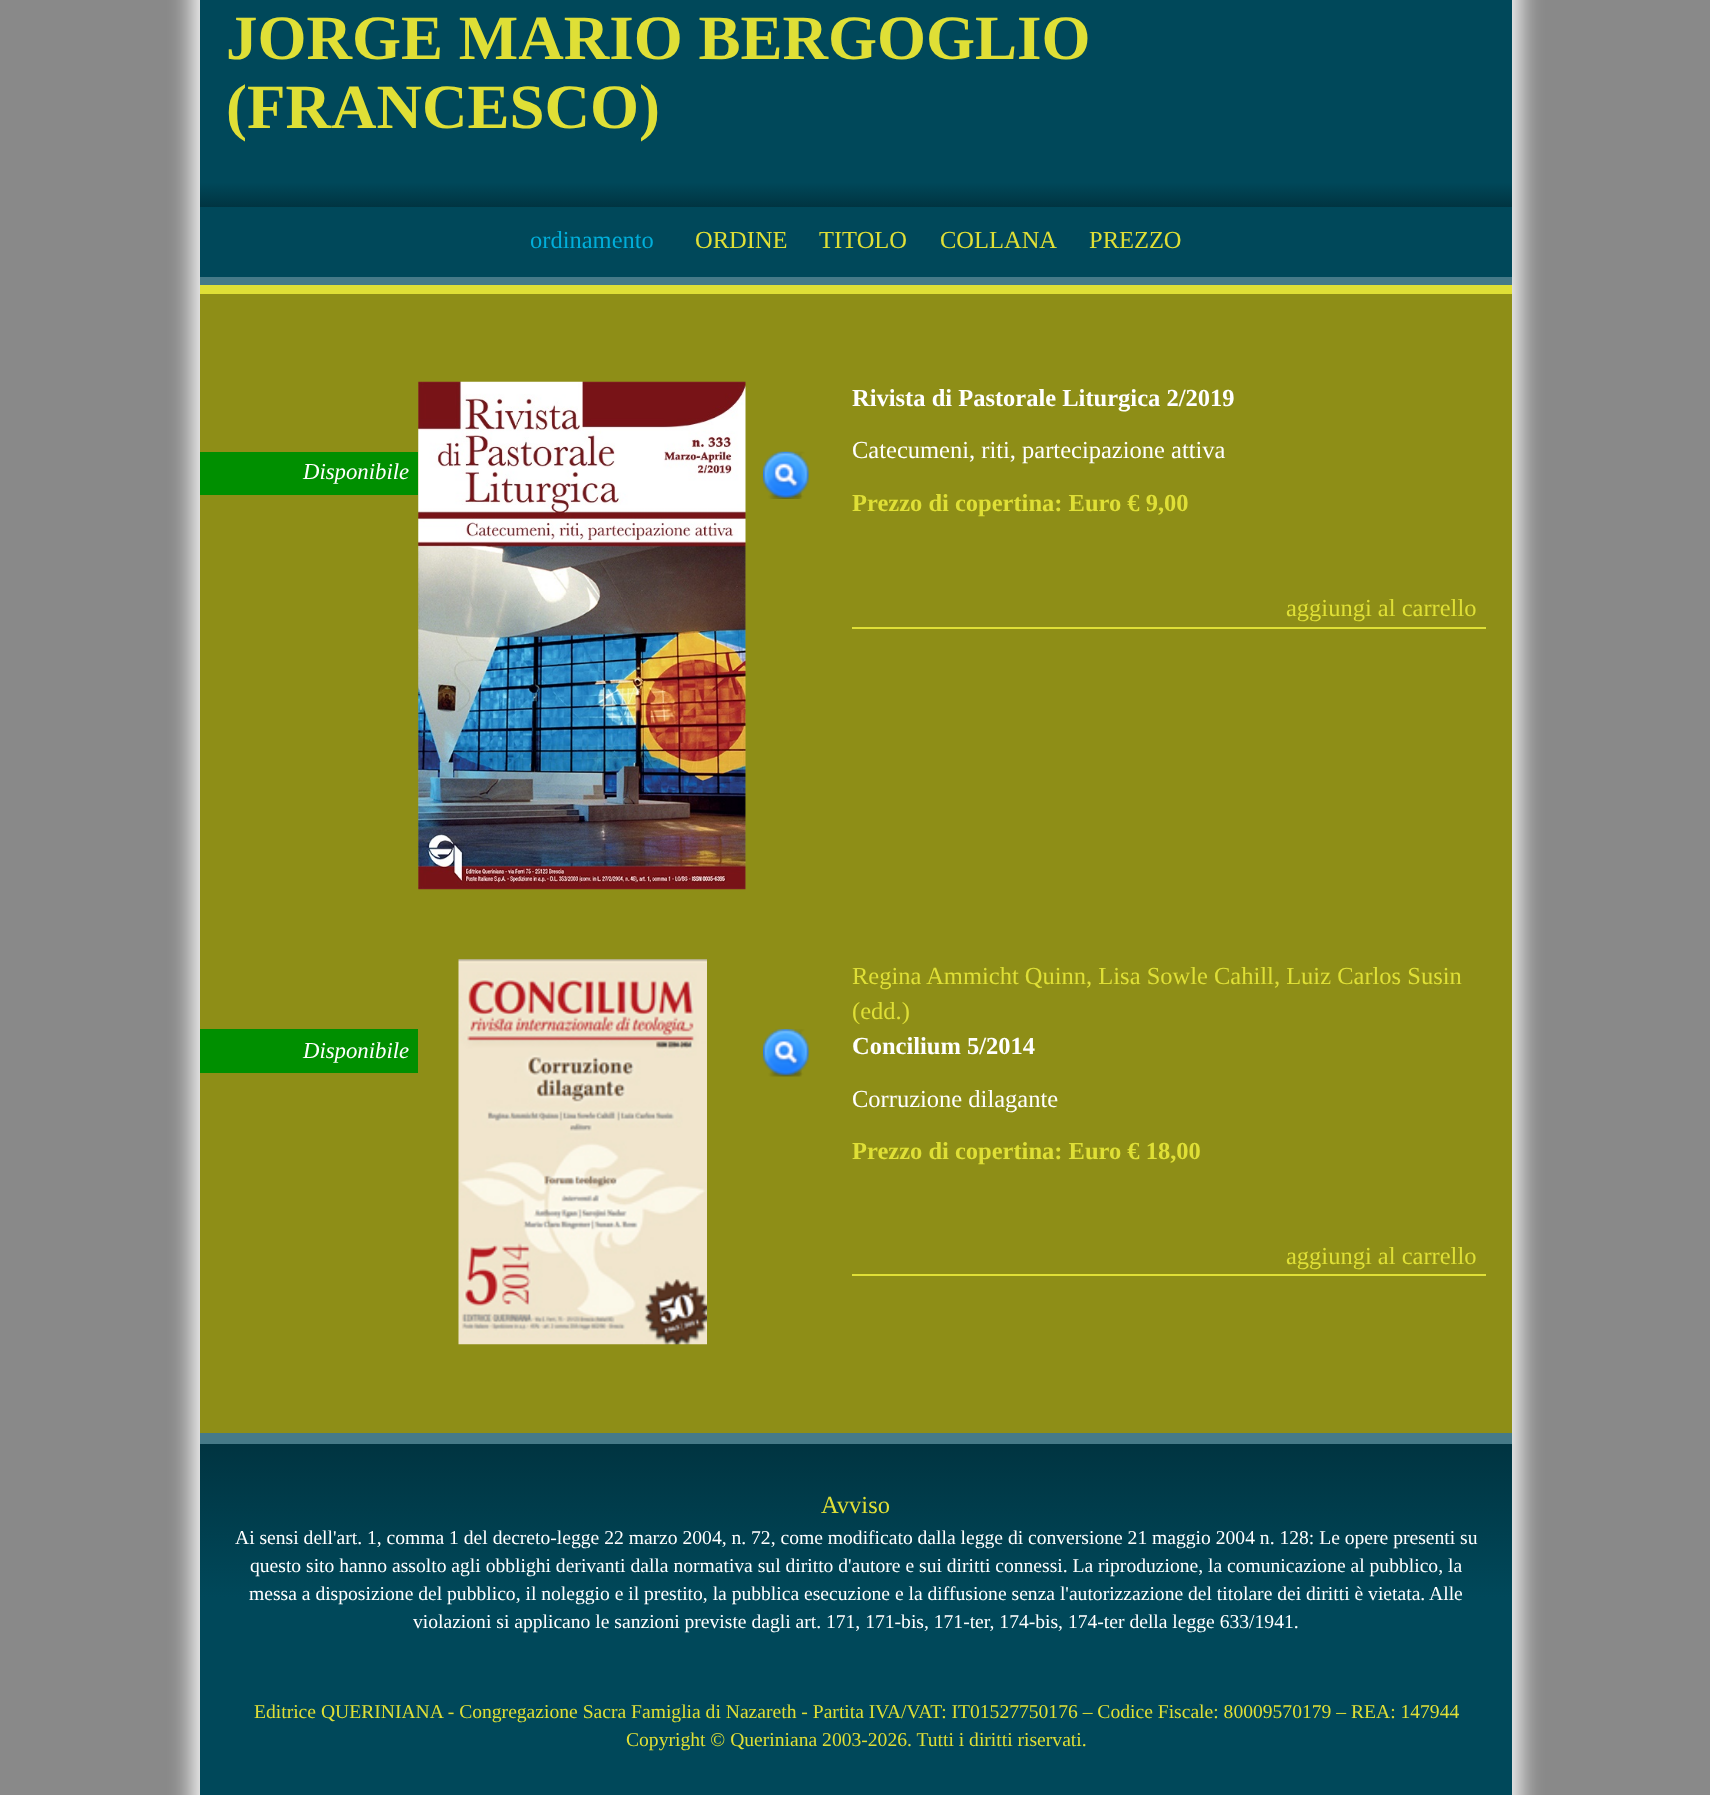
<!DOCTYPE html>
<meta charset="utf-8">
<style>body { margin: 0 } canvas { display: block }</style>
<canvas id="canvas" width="1710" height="1795"></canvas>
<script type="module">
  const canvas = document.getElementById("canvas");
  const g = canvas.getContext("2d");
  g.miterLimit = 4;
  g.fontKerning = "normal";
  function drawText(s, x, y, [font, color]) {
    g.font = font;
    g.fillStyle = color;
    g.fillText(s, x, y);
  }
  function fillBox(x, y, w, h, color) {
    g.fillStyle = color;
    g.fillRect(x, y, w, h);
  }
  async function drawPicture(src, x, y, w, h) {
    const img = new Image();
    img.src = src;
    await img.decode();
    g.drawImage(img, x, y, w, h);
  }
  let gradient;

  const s1 = ["bold 63px Liberation Serif", "#DFDF36"];
  const s2 = ["24.5px Liberation Serif", "#00AEDA"];
  const s3 = ["24.5px Liberation Serif", "#DFDF36"];
  const s4 = ["italic 22.75px Liberation Serif", "#FFFFFF"];
  const s5 = ["bold 24.5px Liberation Serif", "#FFFFFF"];
  const s6 = ["24.5px Liberation Serif", "#FFFFFF"];
  const s7 = ["bold 24.5px Liberation Serif", "#DFDF36"];
  const s8 = ["19.6px Liberation Serif", "#FFFFFF"];
  const s9 = ["19.6px Liberation Serif", "#DFDF36"];

  fillBox(0, 0, 1710, 1795, "#898989");
  g.fillStyle = "#FFFFFF";
  g.filter = "blur(12px)";
  g.beginPath();
  g.roundRect(193, -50, 1326, 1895, 14);
  g.fill();
  g.filter = "none";
  gradient = g.createLinearGradient(856, 207, 856, -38);
  gradient.addColorStop(0, "#003441");
  gradient.addColorStop(0.1, "#00485A");
  gradient.addColorStop(0.9, "#00485A");
  gradient.addColorStop(1, "#003441");
  g.fillStyle = gradient;
  g.fillRect(200, 0, 1312, 207);
  drawText("JORGE MARIO BERGOGLIO", 226, 59, s1);
  drawText("(FRANCESCO)", 226, 128, s1);
  fillBox(200, 294, 1312, 1139, "#8E8E17");
  fillBox(200, 207, 1312, 70, "#00485A");
  fillBox(200, 277, 1312, 8, "#467A88");
  drawText("ordinamento", 530, 248, s2);
  drawText("ORDINE", 695, 248, s3);
  drawText("TITOLO", 819, 248, s3);
  drawText("COLLANA", 940, 248, s3);
  drawText("PREZZO", 1089, 248, s3);
  fillBox(200, 285, 1312, 9, "#DFDF36");
  fillBox(200, 452, 218, 43, "#008F00");
  drawText("Disponibile", 303, 479, s4);
  await drawPicture("pic1.png", 418, 381, 328, 509);
  await drawPicture("pic2.png", 763, 451, 46, 48);
  drawText("Rivista di Pastorale Liturgica 2/2019", 852, 406, s5);
  drawText("Catecumeni, riti, partecipazione attiva", 852, 458, s6);
  drawText("Prezzo di copertina: Euro € 9,00", 852, 511, s7);
  fillBox(852, 627, 634, 2, "#DFDF36");
  drawText("aggiungi al carrello", 1286, 616, s3);
  fillBox(200, 1029, 218, 44, "#008F00");
  drawText("Disponibile", 303, 1058, s4);
  await drawPicture("pic3.png", 458, 959, 249, 386);
  await drawPicture("pic4.png", 763, 1029, 46, 48);
  drawText("Regina Ammicht Quinn, Lisa Sowle Cahill, Luiz Carlos Susin", 852, 984, s3);
  drawText("(edd.)", 852, 1019, s3);
  drawText("Concilium 5/2014", 852, 1054, s5);
  drawText("Corruzione dilagante", 852, 1107, s6);
  drawText("Prezzo di copertina: Euro € 18,00", 852, 1159, s7);
  fillBox(852, 1274, 634, 2, "#DFDF36");
  drawText("aggiungi al carrello", 1286, 1264, s3);
  gradient = g.createLinearGradient(856, 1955, 856, 1444);
  gradient.addColorStop(0.7, "#00485A");
  gradient.addColorStop(1, "#003441");
  g.fillStyle = gradient;
  g.fillRect(200, 1444, 1312, 351);
  fillBox(200, 1433, 1312, 11, "#467A88");
  drawText("Avviso", 821, 1513, s3);
  drawText("Ai sensi dell'art. 1, comma 1 del decreto-legge 22 marzo 2004, n. 72, come modificato dalla legge di conversione 21 maggio 2004 n. 128: Le opere presenti su", 235, 1544, s8);
  drawText("questo sito hanno assolto agli obblighi derivanti dalla normativa sul diritto d'autore e sui diritti connessi. La riproduzione, la comunicazione al pubblico, la", 250, 1572, s8);
  drawText("messa a disposizione del pubblico, il noleggio e il prestito, la pubblica esecuzione e la diffusione senza l'autorizzazione del titolare dei diritti è vietata. Alle", 249, 1600, s8);
  drawText("violazioni si applicano le sanzioni previste dagli art. 171, 171-bis, 171-ter, 174-bis, 174-ter della legge 633/1941.", 413, 1628, s8);
  drawText("Editrice QUERINIANA - Congregazione Sacra Famiglia di Nazareth - Partita IVA/VAT: IT01527750176 – Codice Fiscale: 80009570179 – REA: 147944", 254, 1718, s9);
  drawText("Copyright © Queriniana 2003-2026. Tutti i diritti riservati.", 626, 1746, s9);
</script>
